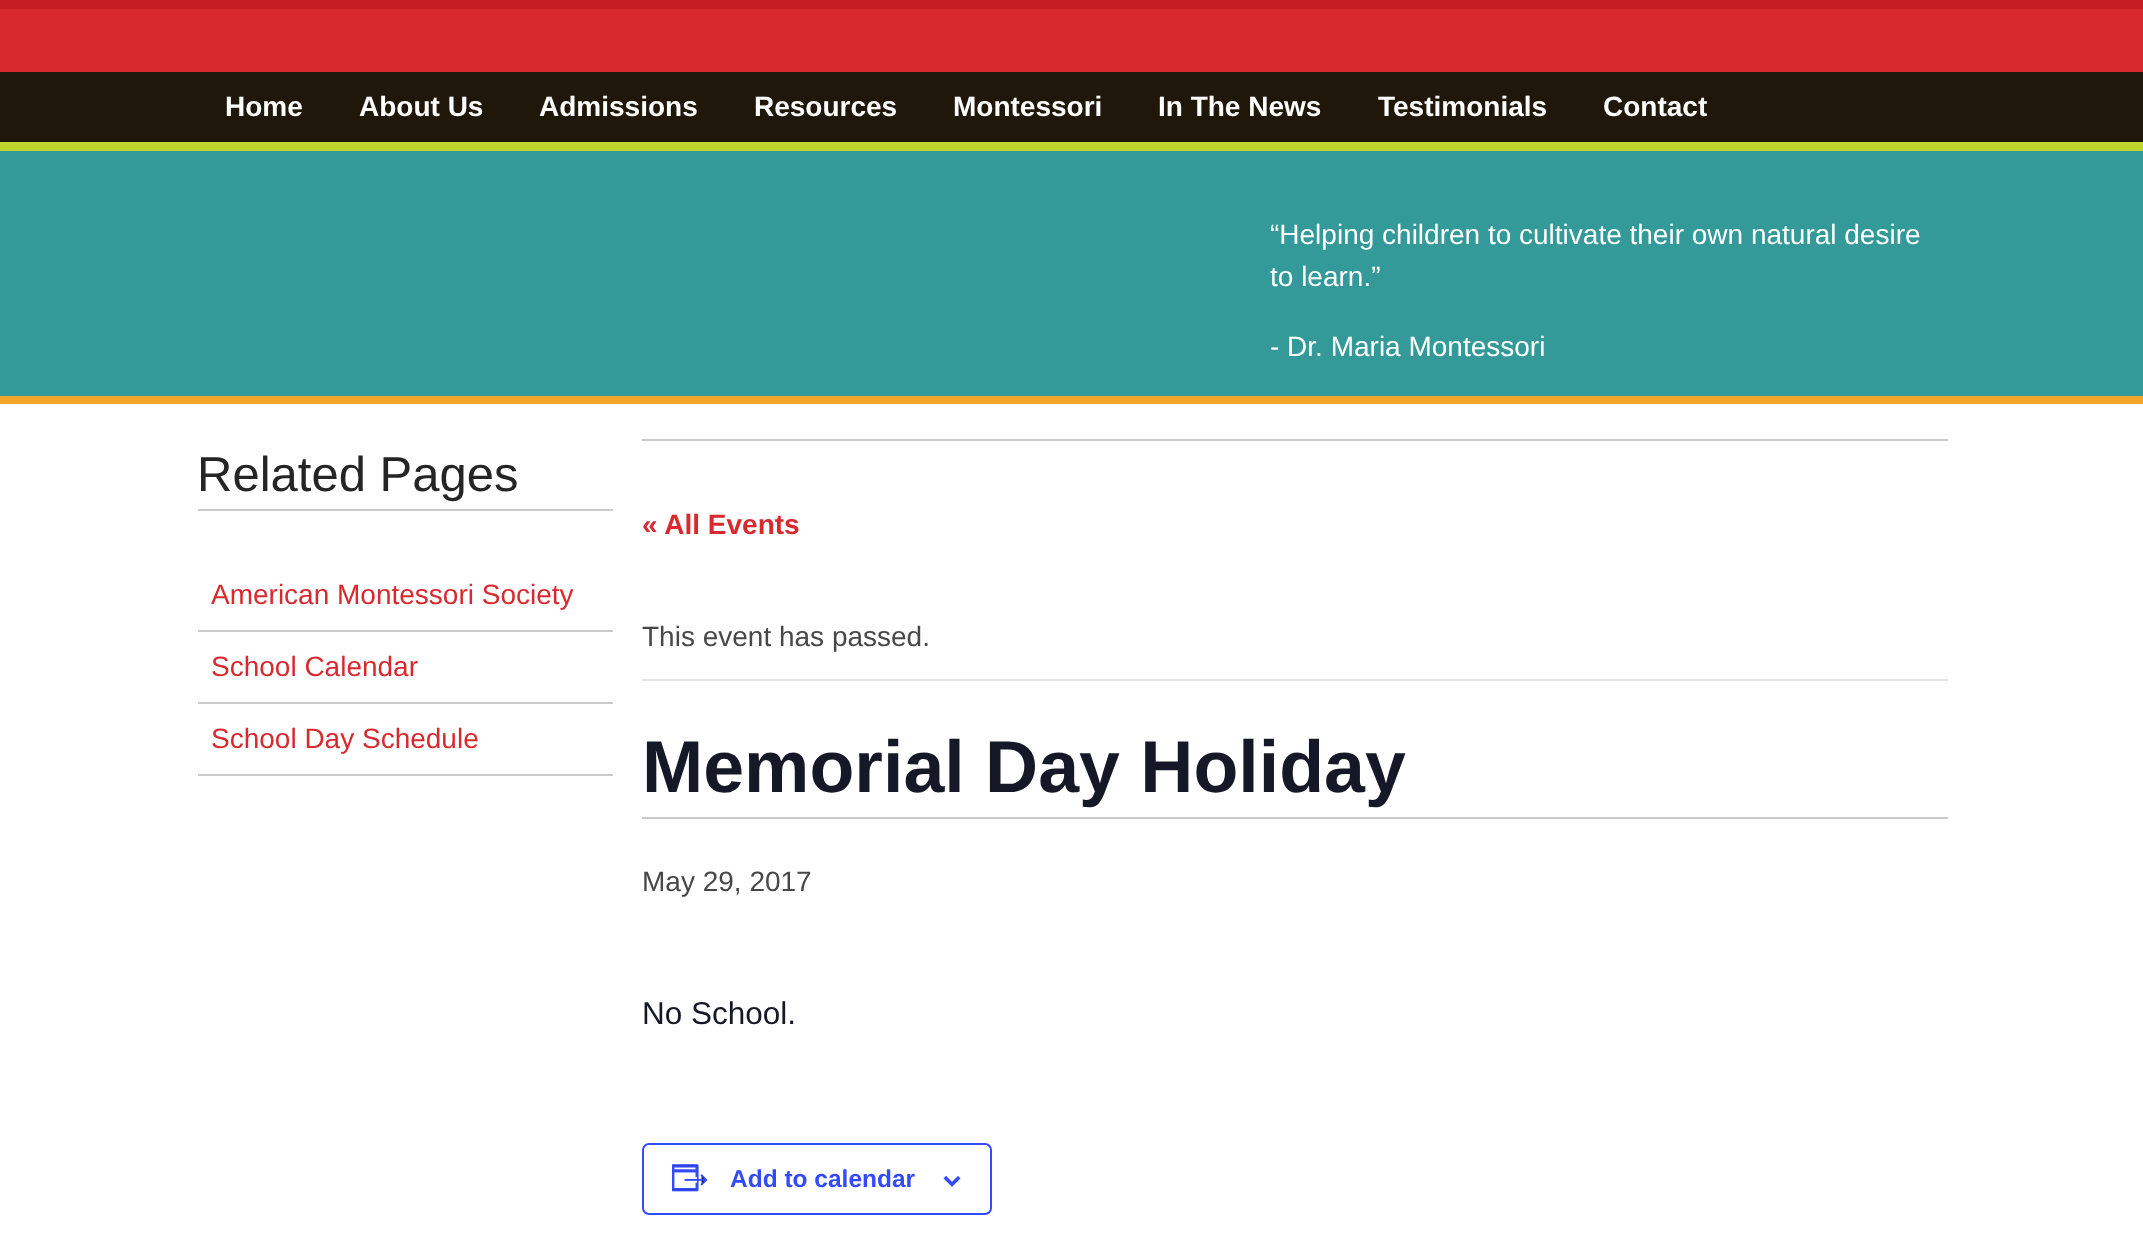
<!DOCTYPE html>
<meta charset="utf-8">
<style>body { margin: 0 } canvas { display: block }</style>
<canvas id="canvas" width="2143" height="1251"></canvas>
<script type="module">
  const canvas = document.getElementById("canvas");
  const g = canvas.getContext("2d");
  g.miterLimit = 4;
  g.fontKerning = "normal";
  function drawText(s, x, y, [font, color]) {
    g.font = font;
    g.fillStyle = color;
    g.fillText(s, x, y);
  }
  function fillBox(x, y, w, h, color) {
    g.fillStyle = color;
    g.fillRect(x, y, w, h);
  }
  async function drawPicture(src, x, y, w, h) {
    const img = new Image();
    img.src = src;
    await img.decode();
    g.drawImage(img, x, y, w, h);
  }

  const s1 = ["bold 28px Liberation Sans", "#FFFFFF"];
  const s2 = ["28px Liberation Sans", "#FFFFFF"];
  const s3 = ["49px Liberation Sans", "#252525"];
  const s4 = ["28px Liberation Sans", "#D8292F"];
  const s5 = ["bold 28px Liberation Sans", "#D8292F"];
  const s6 = ["28px Liberation Sans", "#484848"];
  const s7 = ["bold 73.5px Liberation Sans", "#141827"];
  const s8 = ["31.5px Liberation Sans", "#141827"];
  const s9 = ["bold 24.5px Liberation Sans", "#334AFF"];

  fillBox(0, 0, 2143, 1251, "#FFFFFF");
  fillBox(0, 9, 2143, 63, "#D8292F");
  fillBox(0, 0, 2143, 9, "#C61D23");
  fillBox(0, 72, 2143, 70, "#20170B");
  fillBox(0, 142, 2143, 9, "#C1D52F");
  drawText("Home", 225, 116, s1);
  drawText("About Us", 359, 116, s1);
  drawText("Admissions", 539, 116, s1);
  drawText("Resources", 754, 116, s1);
  drawText("Montessori", 953, 116, s1);
  drawText("In The News", 1158, 116, s1);
  drawText("Testimonials", 1378, 116, s1);
  drawText("Contact", 1603, 116, s1);
  fillBox(0, 151, 2143, 245, "#339999");
  fillBox(0, 396, 2143, 8, "#F4A62B");
  drawText("“Helping children to cultivate their own natural desire", 1270, 244, s2);
  drawText("to learn.”", 1270, 286, s2);
  drawText("- Dr. Maria Montessori", 1270, 356, s2);
  fillBox(198, 509, 415, 2, "#CACACA");
  drawText("Related Pages", 197, 491, s3);
  fillBox(198, 630, 415, 2, "#CACACA");
  drawText("American Montessori Society", 211, 604, s4);
  fillBox(198, 702, 415, 2, "#CACACA");
  drawText("School Calendar", 211, 676, s4);
  fillBox(198, 774, 415, 2, "#CACACA");
  drawText("School Day Schedule", 211, 748, s4);
  fillBox(642, 439, 1306, 2, "#CACACA");
  drawText("« All Events", 642, 534, s5);
  fillBox(642, 679, 1306, 2, "#E4E4E4");
  drawText("This event has passed.", 642, 646, s6);
  fillBox(642, 817, 1306, 2, "#CACACA");
  drawText("Memorial Day Holiday", 642, 792, s7);
  drawText("May 29, 2017", 642, 891, s6);
  drawText("No School.", 642, 1024, s8);
  g.beginPath();
  g.roundRect(643, 1144, 348, 70, 6);
  g.strokeStyle = "#334AFF";
  g.lineWidth = 2;
  g.stroke();
  await drawPicture("pic1.png", 672, 1164, 36, 28);
  drawText("Add to calendar", 730, 1187, s9);
  await drawPicture("pic2.png", 943, 1176, 18, 11);
</script>
